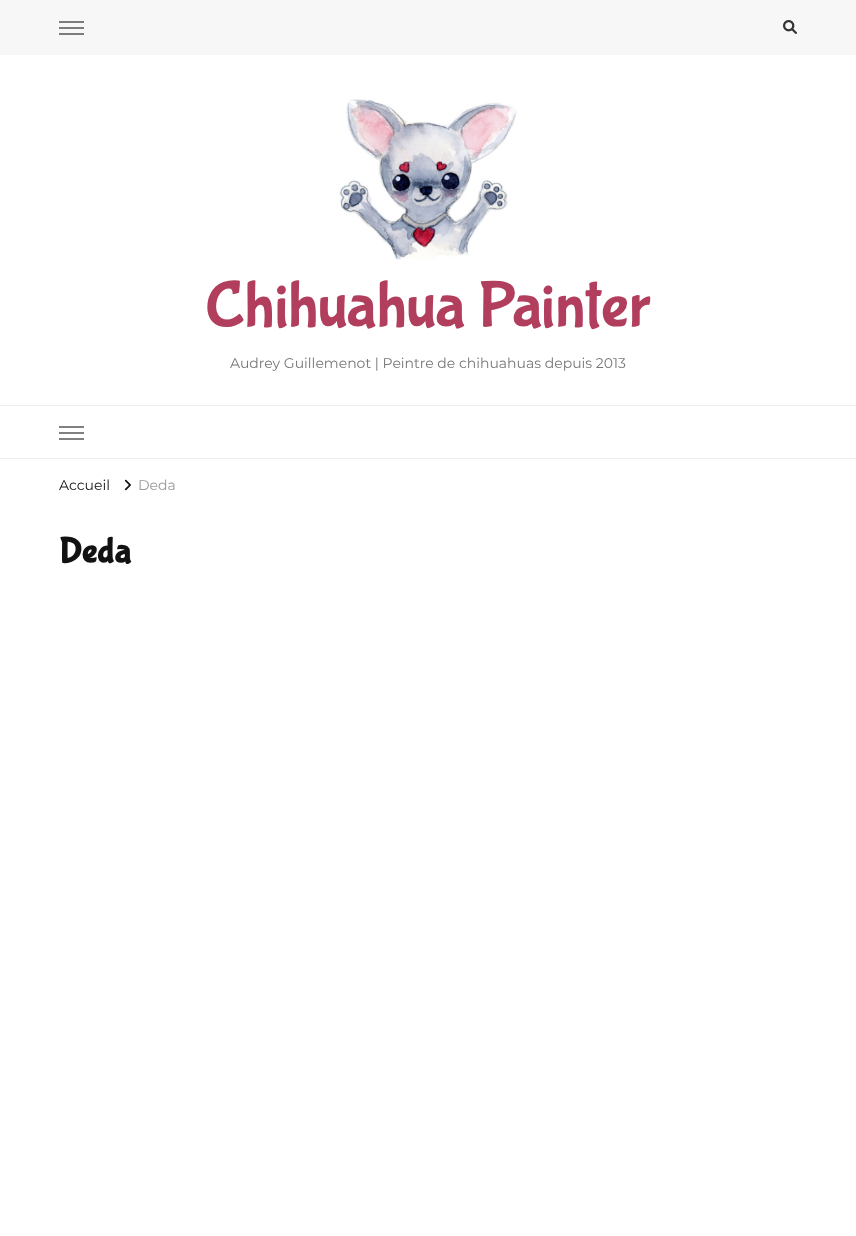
<!DOCTYPE html>
<meta charset="utf-8">
<style>body { margin: 0 } canvas { display: block }</style>
<canvas id="canvas" width="856" height="1236"></canvas>
<script type="module">
  const canvas = document.getElementById("canvas");
  const g = canvas.getContext("2d");
  g.miterLimit = 4;
  g.fontKerning = "normal";
  function drawText(s, x, y, [font, color]) {
    g.font = font;
    g.fillStyle = color;
    g.fillText(s, x, y);
  }
  function fillBox(x, y, w, h, color) {
    g.fillStyle = color;
    g.fillRect(x, y, w, h);
  }
  async function drawPicture(src, x, y, w, h) {
    const img = new Image();
    img.src = src;
    await img.decode();
    g.drawImage(img, x, y, w, h);
  }

  const s1 = ["66px Bubblegum Sans", "#B13E5D"];
  const s2 = ["14px Montserrat", "#777777"];
  const s3 = ["14px Montserrat", "#121212"];
  const s4 = ["14px Montserrat", "#999999"];
  const s5 = ["bold 36px Bubblegum Sans", "#121212"];

  fillBox(0, 0, 856, 1236, "#FFFFFF");
  fillBox(0, 0, 856, 55, "#F7F7F7");
  fillBox(59, 21, 25, 2, "#7C7C7C");
  fillBox(59, 27, 25, 2, "#7C7C7C");
  fillBox(59, 33, 25, 2, "#7C7C7C");
  await drawPicture("pic1.png", 783, 20, 14, 14);
  await drawPicture("pic2.png", 339, 99, 178, 161);
  drawText("Chihuahua Painter", 205, 325, s1);
  drawText("Audrey Guillemenot | Peintre de chihuahuas depuis 2013", 230, 368, s2);
  fillBox(0, 405, 856, 1, "#EDEDED");
  fillBox(0, 458, 856, 1, "#EDEDED");
  fillBox(59, 426, 25, 2, "#808080");
  fillBox(59, 432, 25, 2, "#808080");
  fillBox(59, 438, 25, 2, "#808080");
  drawText("Accueil", 59, 490, s3);
  await drawPicture("pic3.png", 124, 479, 7, 12);
  drawText("Deda", 138, 490, s4);
  drawText("Deda", 59, 562, s5);
</script>
